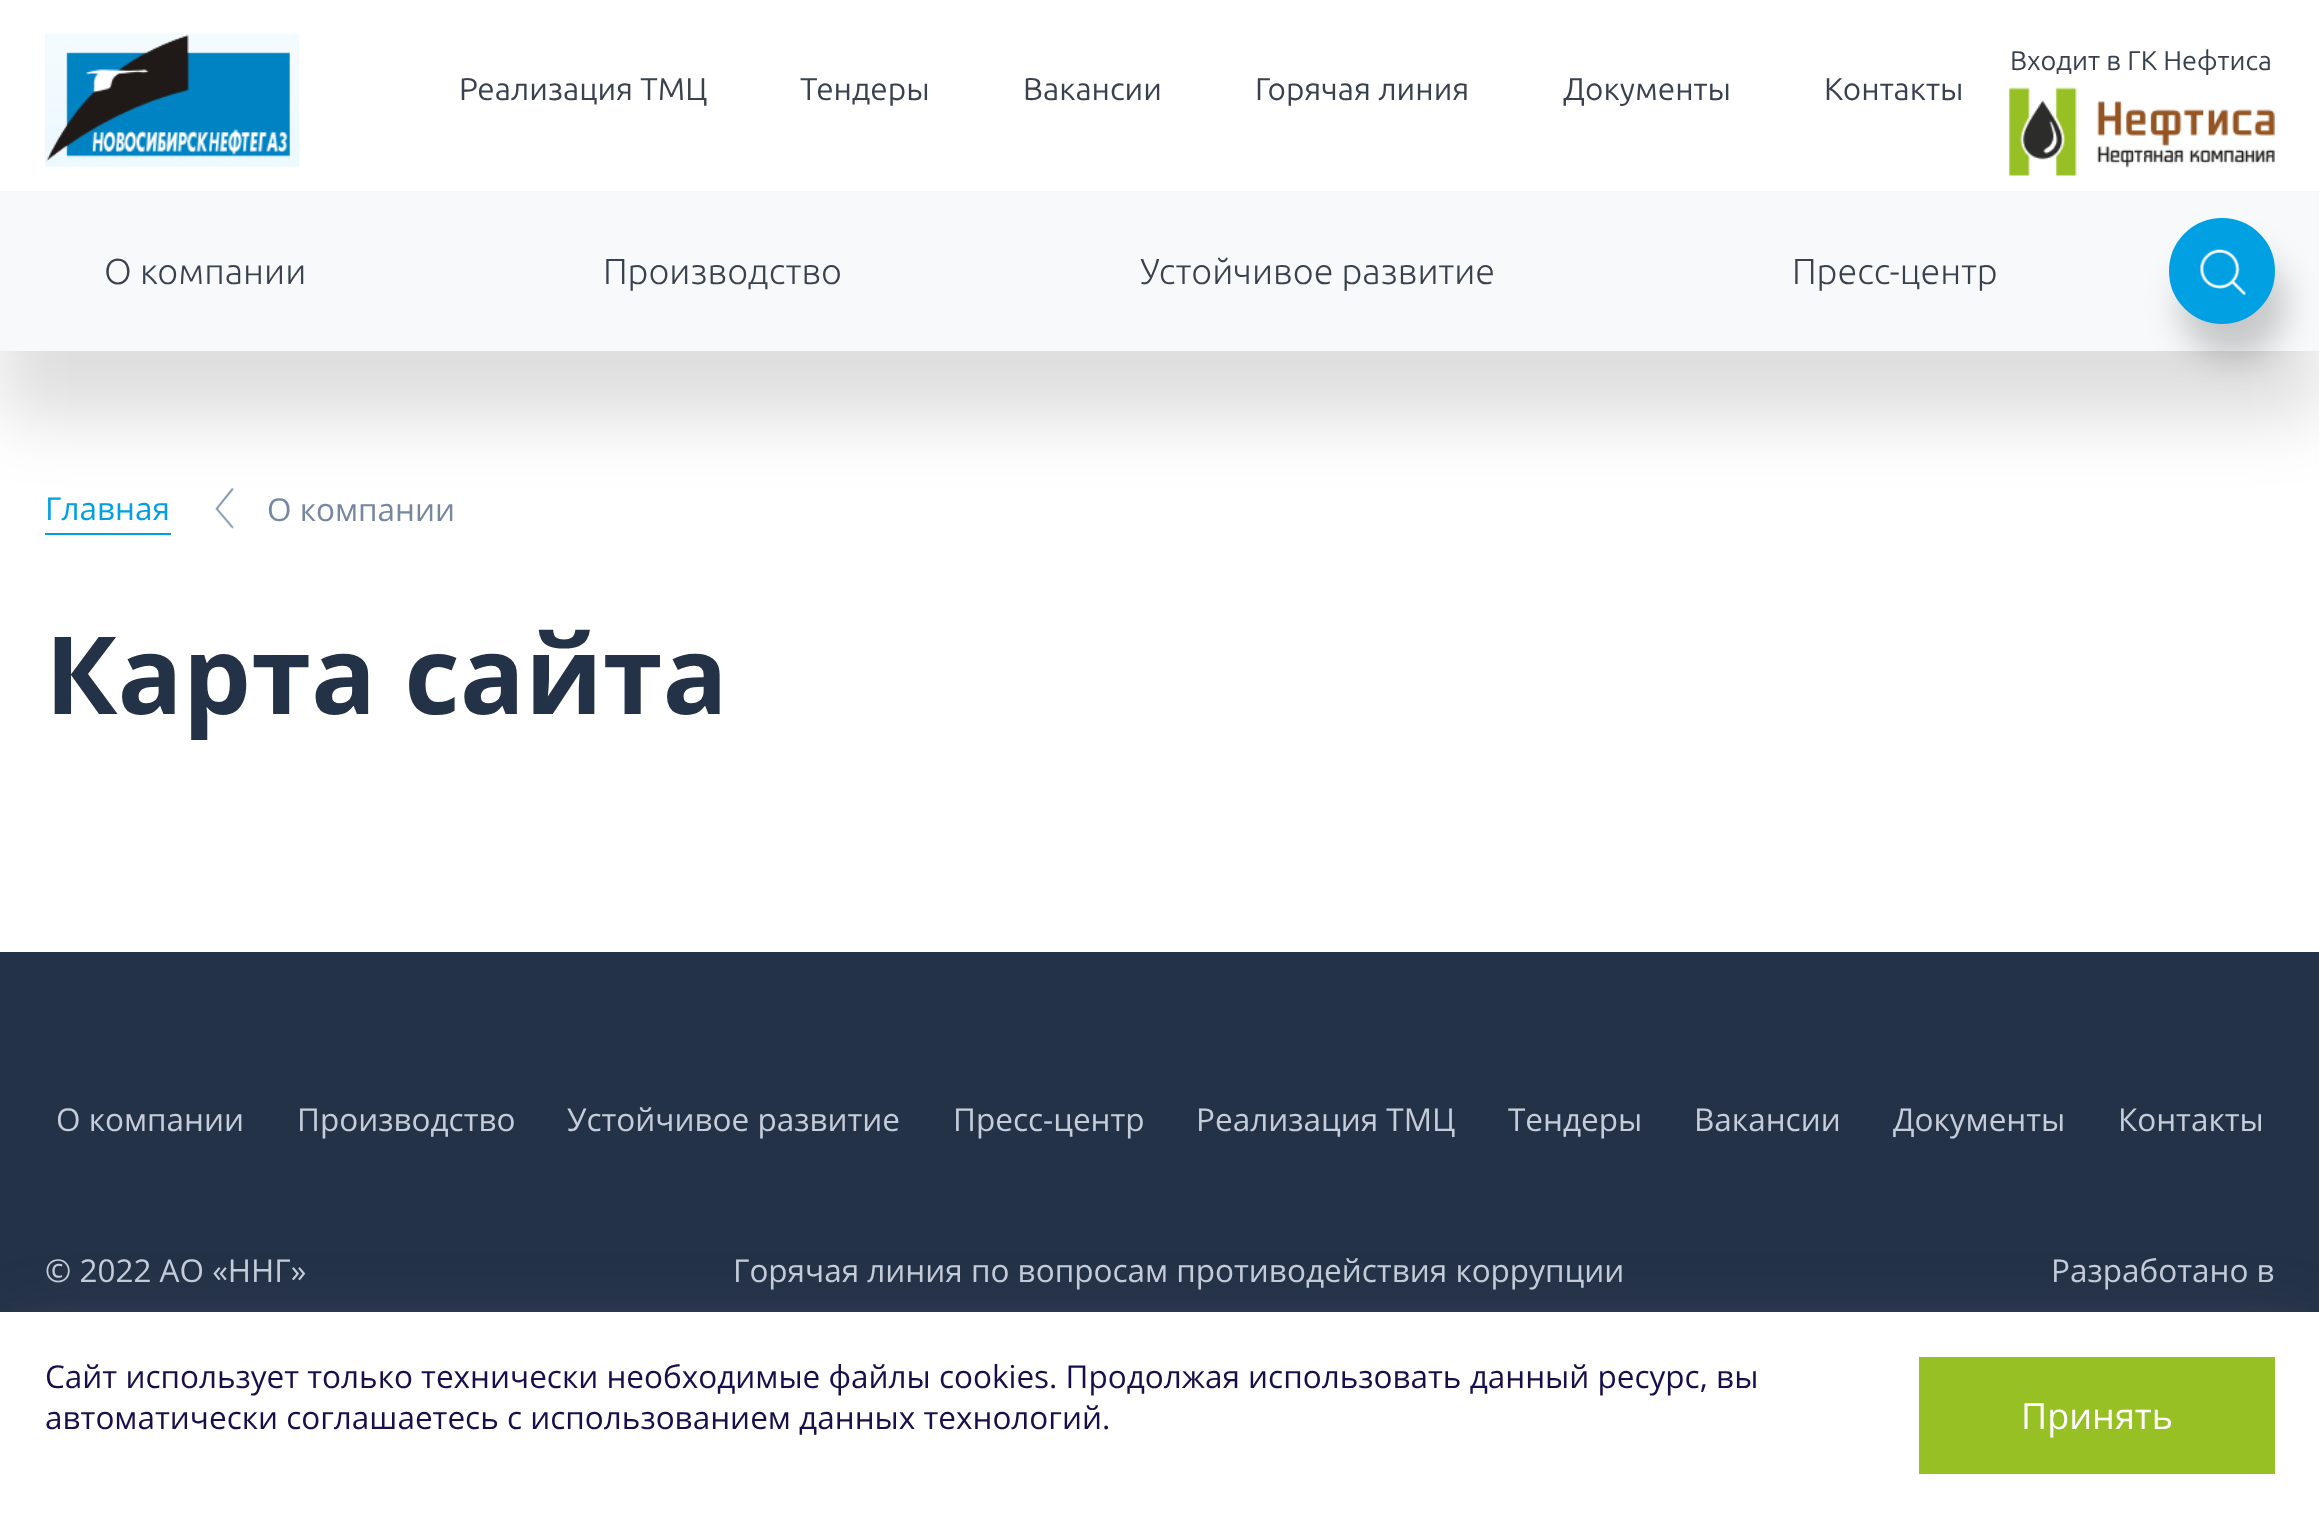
<!DOCTYPE html>
<meta charset="utf-8">
<style>body { margin: 0 } canvas { display: block }</style>
<canvas id="canvas" width="2319" height="1518"></canvas>
<script type="module">
  const canvas = document.getElementById("canvas");
  const g = canvas.getContext("2d");
  g.miterLimit = 4;
  g.fontKerning = "normal";
  function drawText(s, x, y, [font, color]) {
    g.font = font;
    g.fillStyle = color;
    g.fillText(s, x, y);
  }
  function fillBox(x, y, w, h, color) {
    g.fillStyle = color;
    g.fillRect(x, y, w, h);
  }
  async function drawPicture(src, x, y, w, h) {
    const img = new Image();
    img.src = src;
    await img.decode();
    g.drawImage(img, x, y, w, h);
  }

  const s1 = ["27px Ubuntu", "#39414E"];
  const s2 = ["31.5px Ubuntu", "#39414E"];
  const s3 = ["300 36px Ubuntu", "#39414E"];
  const s4 = ["31.5px Open Sans", "#00A0E3"];
  const s5 = ["31.5px Open Sans", "#7787A0"];
  const s6 = ["bold 108px Open Sans", "#243247"];
  const s7 = ["31.5px Open Sans", "#C5CDDA"];
  const s8 = ["31.5px Open Sans", "#170F49"];
  const s9 = ["36px Open Sans", "#FFFFFF"];

  fillBox(0, 0, 2319, 1518, "#FFFFFF");
  await drawPicture("pic1.png", 45, 34, 255, 133);
  drawText("Входит в ГК Нефтиса", 2010, 70, s1);
  await drawPicture("pic2.png", 2009, 87, 266, 89);
  drawText("Реализация ТМЦ", 459, 100, s2);
  drawText("Тендеры", 800, 100, s2);
  drawText("Вакансии", 1023, 100, s2);
  drawText("Горячая линия", 1255, 100, s2);
  drawText("Документы", 1563, 100, s2);
  drawText("Контакты", 1824, 100, s2);
  await drawPicture("pic4.png", 215, 488, 19, 41);
  g.fillStyle = "rgba(0, 0, 0, 0.13)";
  g.filter = "blur(34px)";
  g.beginPath();
  g.rect(0, 259, 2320, 160);
  g.fill();
  g.filter = "none";
  fillBox(0, 191, 2319, 160, "#F7F9FA");
  drawText("О компании", 104, 284, s3);
  drawText("Производство", 603, 284, s3);
  drawText("Устойчивое развитие", 1140, 284, s3);
  drawText("Пресс-центр", 1792, 284, s3);
  g.fillStyle = "rgba(0, 0, 0, 0.2)";
  g.filter = "blur(17px)";
  g.beginPath();
  g.roundRect(2180, 252, 106, 106, 53);
  g.fill();
  g.filter = "none";
  g.fillStyle = "#00A0E3";
  g.beginPath();
  g.arc(2222, 271, 52, 0, Math.PI * 2);
  g.fill();
  g.strokeStyle = "#00A0E3";
  g.lineWidth = 2;
  g.stroke();
  await drawPicture("pic3.png", 2200, 249, 46, 46);
  fillBox(45, 533, 126, 2, "#00A0E3");
  drawText("Главная", 45, 520, s4);
  drawText("О компании", 267, 521, s5);
  drawText("Карта сайта", 45, 714, s6);
  fillBox(0, 952, 2319, 360, "#243247");
  drawText("О компании", 56, 1131, s7);
  drawText("Производство", 297, 1131, s7);
  drawText("Устойчивое развитие", 567, 1131, s7);
  drawText("Пресс-центр", 953, 1131, s7);
  drawText("Реализация ТМЦ", 1196, 1131, s7);
  drawText("Тендеры", 1508, 1131, s7);
  drawText("Вакансии", 1694, 1131, s7);
  drawText("Документы", 1893, 1131, s7);
  drawText("Контакты", 2118, 1131, s7);
  drawText("© 2022 АО «ННГ»", 45, 1282, s7);
  drawText("Горячая линия по вопросам противодействия коррупции", 733, 1282, s7);
  drawText("Разработано в", 2051, 1282, s7);
  g.fillStyle = "rgba(170, 170, 190, 0.12)";
  g.filter = "blur(13.5px)";
  g.beginPath();
  g.rect(5, 1323, 2310, 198);
  g.fill();
  g.filter = "none";
  g.fillStyle = "rgba(111, 108, 143, 0.2)";
  g.filter = "blur(36px)";
  g.beginPath();
  g.rect(9, 1330, 2302, 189);
  g.fill();
  g.filter = "none";
  fillBox(0, 1312, 2319, 206, "#FFFFFF");
  drawText("Сайт использует только технически необходимые файлы cookies. Продолжая использовать данный ресурс, вы", 45, 1388, s8);
  drawText("автоматически соглашаетесь с использованием данных технологий.", 45, 1429, s8);
  fillBox(1919, 1357, 356, 117, "#96C024");
  drawText("Принять", 2021, 1429, s9);
</script>
